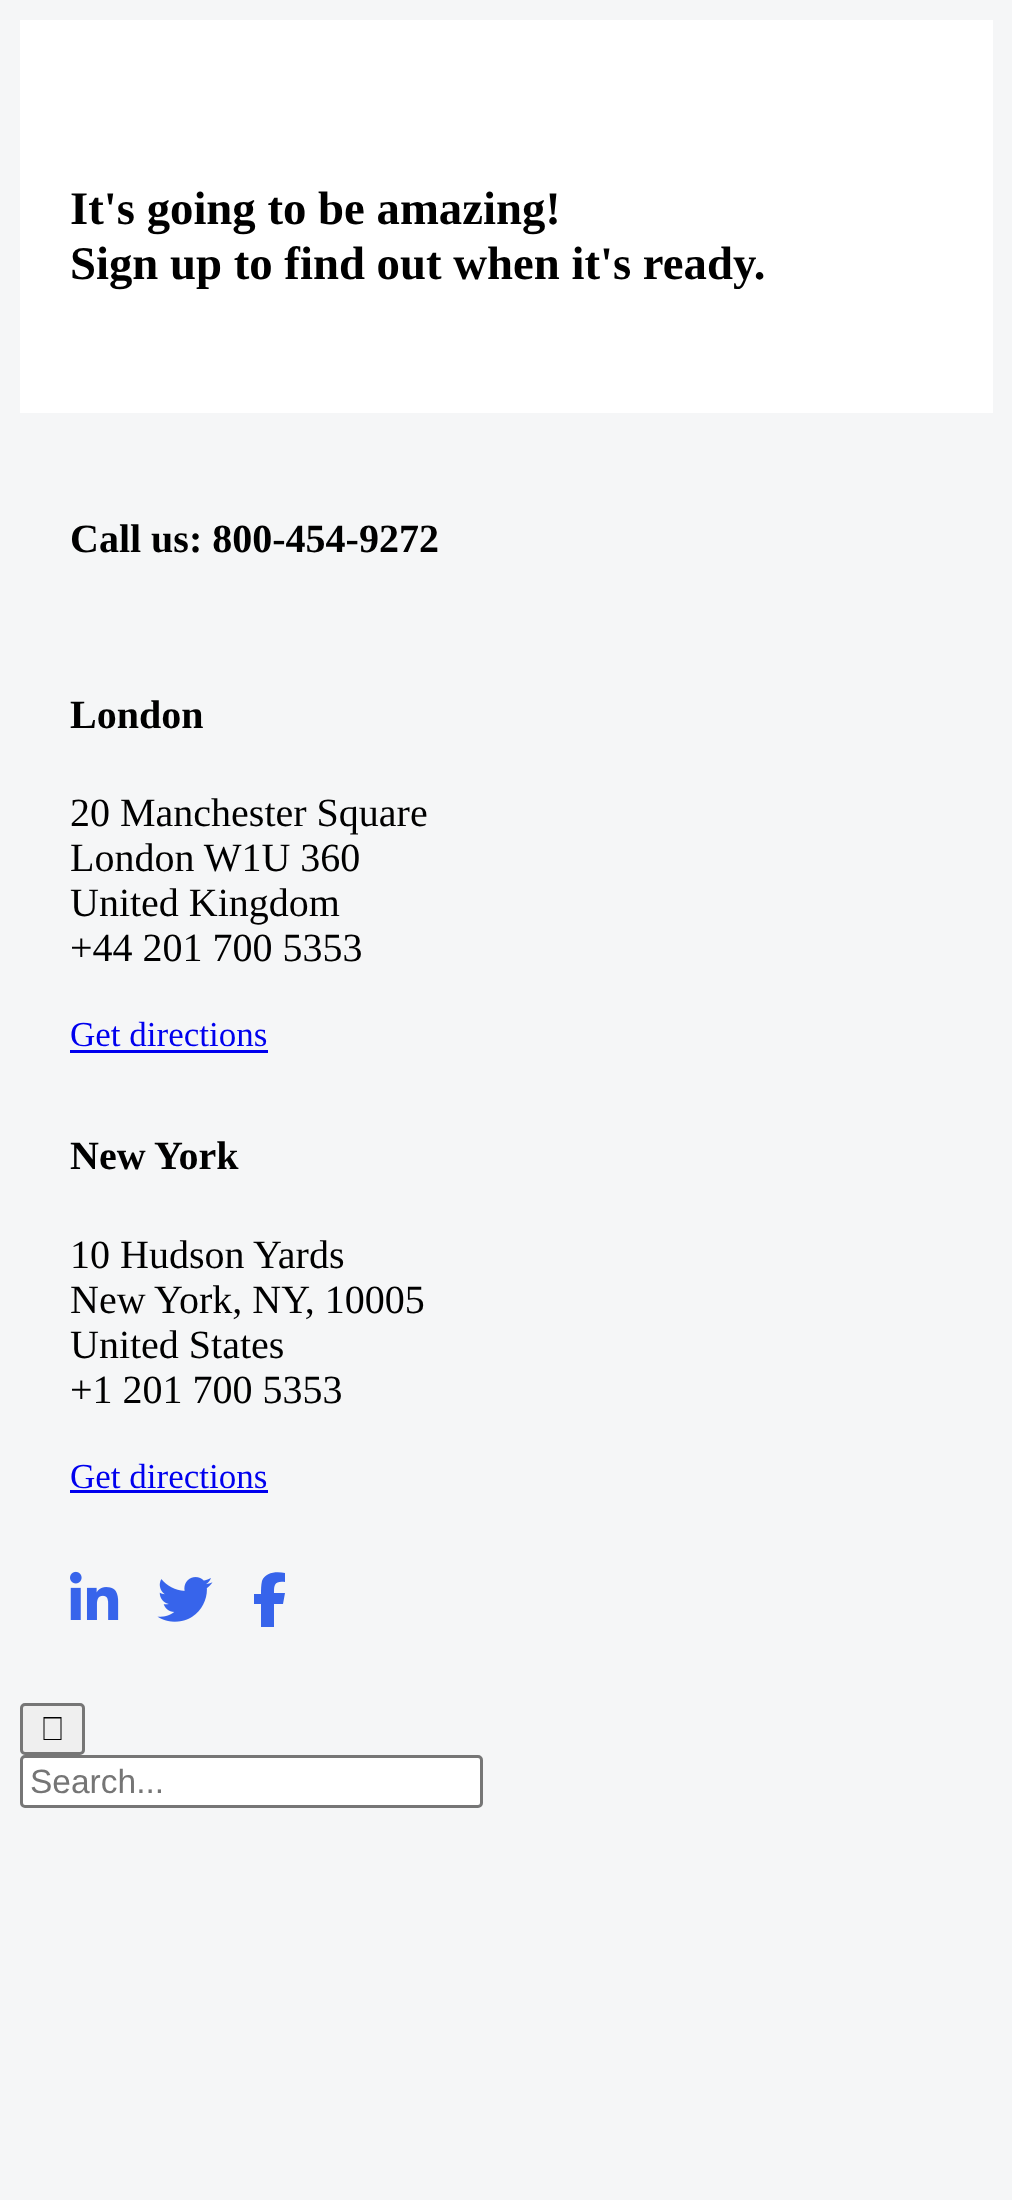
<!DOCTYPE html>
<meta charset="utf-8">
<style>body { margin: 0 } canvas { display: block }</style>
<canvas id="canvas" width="1012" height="2200"></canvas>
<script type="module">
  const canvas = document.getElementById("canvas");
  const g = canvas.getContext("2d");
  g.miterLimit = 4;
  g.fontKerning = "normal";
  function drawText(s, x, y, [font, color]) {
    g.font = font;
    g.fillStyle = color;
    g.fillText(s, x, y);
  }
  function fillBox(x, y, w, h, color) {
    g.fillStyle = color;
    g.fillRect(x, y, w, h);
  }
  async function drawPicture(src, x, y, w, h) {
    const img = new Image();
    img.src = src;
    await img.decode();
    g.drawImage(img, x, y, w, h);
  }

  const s1 = ["bold 46.75px Liberation Serif", "#000000"];
  const s2 = ["bold 40px Liberation Serif", "#000000"];
  const s3 = ["40px Liberation Serif", "#000000"];
  const s4 = ["35px Liberation Serif", "#0000EE"];
  const s5 = ["33.5px Liberation Sans", "#757575"];

  fillBox(0, 0, 1012, 2200, "#F5F6F7");
  fillBox(20, 20, 973, 393, "#FFFFFF");
  drawText("It's going to be amazing!", 70, 224, s1);
  drawText("Sign up to find out when it's ready.", 70, 279, s1);
  drawText("Call us: 800-454-9272", 70, 552, s2);
  drawText("London", 70, 728, s2);
  drawText("20 Manchester Square", 70, 826, s3);
  drawText("London W1U 360", 70, 871, s3);
  drawText("United Kingdom", 70, 916, s3);
  drawText("+44 201 700 5353", 70, 961, s3);
  drawText("Get directions", 70, 1046, s4);
  fillBox(70, 1050, 198, 3, "#0000EE");
  drawText("New York", 70, 1169, s2);
  drawText("10 Hudson Yards", 70, 1268, s3);
  drawText("New York, NY, 10005", 70, 1313, s3);
  drawText("United States", 70, 1358, s3);
  drawText("+1 201 700 5353", 70, 1403, s3);
  drawText("Get directions", 70, 1488, s4);
  fillBox(70, 1490, 198, 3, "#0000EE");
  await drawPicture("pic1.png", 70, 1571, 49, 49);
  await drawPicture("pic2.png", 157, 1577, 56, 45);
  g.fillStyle = "#3764EB";
  g.beginPath();
  g.moveTo(261, 1604);
  g.lineTo(261, 1627);
  g.lineTo(261, 1604);
  g.lineTo(261, 1627);
  g.lineTo(274, 1627);
  g.lineTo(274, 1604);
  g.lineTo(283, 1604);
  g.lineTo(285, 1593);
  g.lineTo(274, 1593);
  g.bezierCurveTo(274, 1584, 275, 1581, 285, 1582);
  g.lineTo(285, 1573);
  g.bezierCurveTo(277, 1571, 265, 1572, 262, 1581);
  g.bezierCurveTo(261, 1585, 261, 1590, 261, 1594);
  g.lineTo(254, 1594);
  g.lineTo(254, 1604);
  g.closePath();
  g.fill();
  g.fillStyle = "#EFEFEF";
  g.beginPath();
  g.roundRect(21.5, 1704.5, 62, 49, 3.5);
  g.fill();
  g.strokeStyle = "#767676";
  g.lineWidth = 3;
  g.stroke();
  g.fillStyle = "#000000";
  g.beginPath();
  g.moveTo(43.5, 1717);
  g.lineTo(61.5, 1717);
  g.lineTo(61.5, 1740);
  g.lineTo(43.5, 1740);
  g.closePath();
  g.moveTo(44.5, 1718.5);
  g.lineTo(44.5, 1739);
  g.lineTo(60.5, 1739);
  g.lineTo(60.5, 1718.5);
  g.closePath();
  g.fill();
  g.fillStyle = "#FFFFFF";
  g.beginPath();
  g.roundRect(21.5, 1756.5, 460, 50, 3.5);
  g.fill();
  g.stroke();
  drawText("Search...", 30, 1793, s5);
</script>
